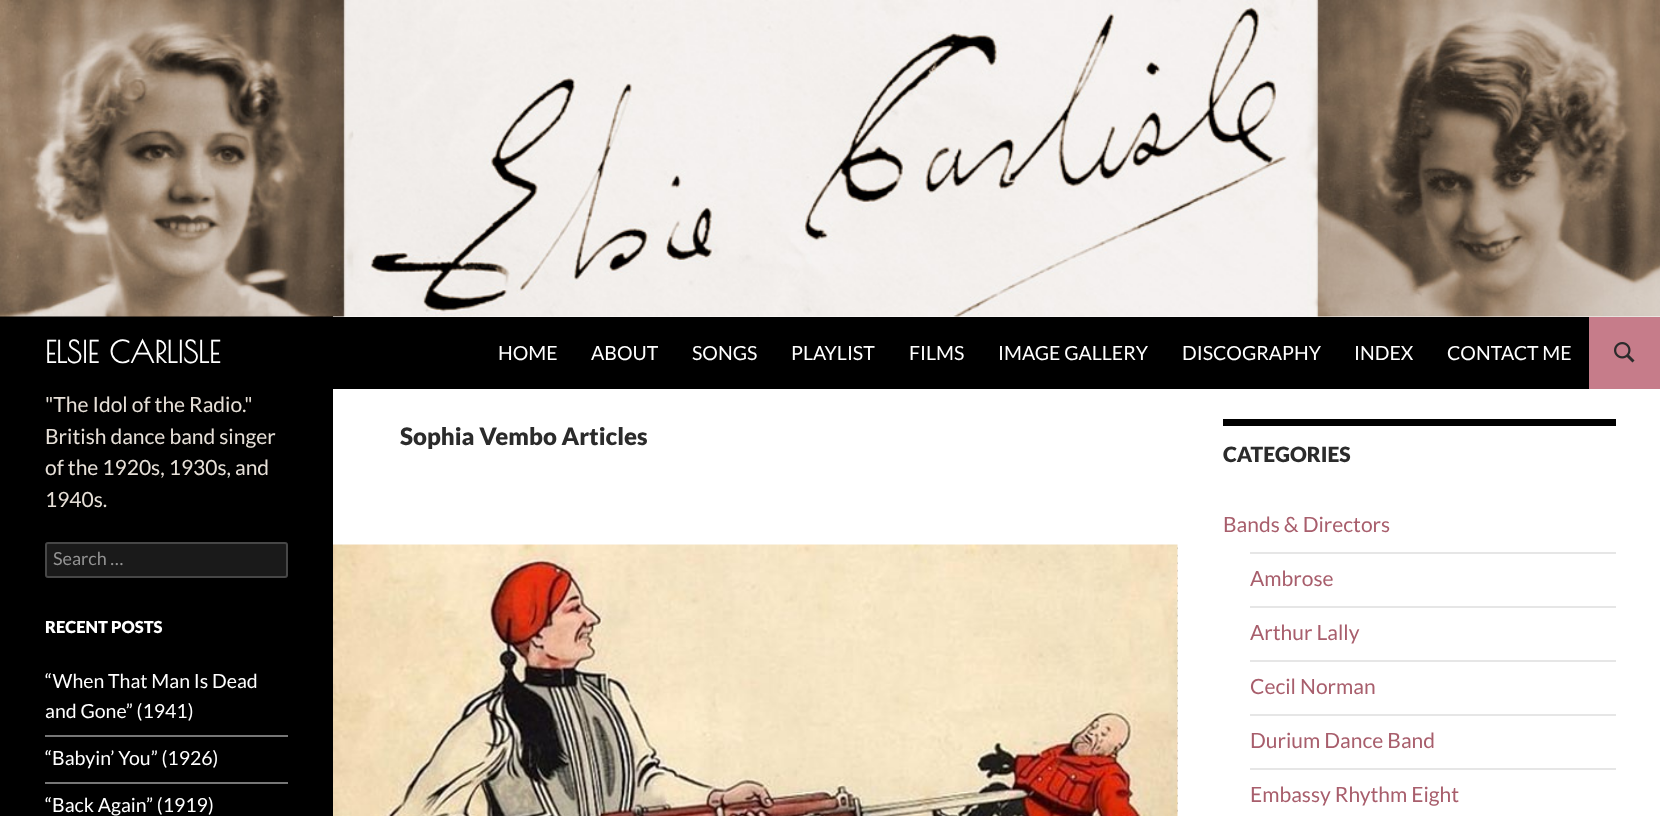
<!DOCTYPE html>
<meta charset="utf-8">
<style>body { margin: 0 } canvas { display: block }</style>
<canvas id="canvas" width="1660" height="816"></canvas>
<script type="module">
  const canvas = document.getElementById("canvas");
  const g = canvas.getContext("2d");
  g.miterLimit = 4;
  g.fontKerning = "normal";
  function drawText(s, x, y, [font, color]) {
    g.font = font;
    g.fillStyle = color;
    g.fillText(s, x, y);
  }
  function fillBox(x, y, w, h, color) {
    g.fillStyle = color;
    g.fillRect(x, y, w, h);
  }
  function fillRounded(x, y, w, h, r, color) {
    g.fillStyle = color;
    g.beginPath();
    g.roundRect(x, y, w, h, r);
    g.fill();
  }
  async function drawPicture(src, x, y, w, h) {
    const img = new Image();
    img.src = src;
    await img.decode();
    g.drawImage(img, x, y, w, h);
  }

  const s1 = ["bold 30px Poiret One", "#FFFFFF"];
  const s2 = ["19.5px Lato", "#FFFFFF"];
  const s3 = ["21px Lato", "#E7E0D8"];
  const s4 = ["18px Lato", "#939393"];
  const s5 = ["900 16.5px Lato", "#FFFFFF"];
  const s6 = ["900 24px Lato", "#2B2B2B"];
  const s7 = ["900 21px Lato", "#2B2B2B"];
  const s8 = ["21px Lato", "#A85E6C"];

  fillBox(0, 0, 1660, 816, "#FFFFFF");
  fillBox(0, 316, 333, 500, "#000000");
  await drawPicture("pic1.png", 0, 0, 1660, 317);
  fillBox(333, 317, 1256, 72, "#000000");
  drawText("ELSIE CARLISLE", 45, 363, s1);
  drawText("HOME", 498, 360, s2);
  drawText("ABOUT", 591, 360, s2);
  drawText("SONGS", 692, 360, s2);
  drawText("PLAYLIST", 791, 360, s2);
  drawText("FILMS", 909, 360, s2);
  drawText("IMAGE GALLERY", 998, 360, s2);
  drawText("DISCOGRAPHY", 1182, 360, s2);
  drawText("INDEX", 1354, 360, s2);
  drawText("CONTACT ME", 1447, 360, s2);
  fillBox(1589, 317, 71, 72, "#C67C8A");
  await drawPicture("pic2.png", 1614, 342, 21, 21);
  drawText("\"The Idol of the Radio.\"", 45, 412, s3);
  drawText("British dance band singer", 45, 444, s3);
  drawText("of the 1920s, 1930s, and", 45, 475, s3);
  drawText("1940s.", 45, 507, s3);
  fillRounded(45, 542, 243, 36, 3, "#1A1A1A");
  g.beginPath();
  g.roundRect(46, 543, 241, 34, 2);
  g.strokeStyle = "rgba(255, 255, 255, 0.2)";
  g.lineWidth = 2;
  g.stroke();
  drawText("Search …", 53, 565, s4);
  drawText("RECENT POSTS", 45, 633, s5);
  fillBox(45, 735, 243, 2, "#767676");
  drawText("“When That Man Is Dead", 45, 688, s2);
  drawText("and Gone” (1941)", 45, 718, s2);
  fillBox(45, 782, 243, 2, "#767676");
  drawText("“Babyin’ You” (1926)", 45, 765, s2);
  drawText("“Back Again” (1919)", 45, 812, s2);
  drawText("Sophia Vembo Articles", 400, 445, s6);
  fillBox(1177, 547, 1, 265, "#B2B2B2");
  await drawPicture("pic3.png", 1177, 545, 1, 271);
  await drawPicture("pic4.png", 333, 544, 845, 272);
  fillBox(1223, 419, 393, 7, "#000000");
  drawText("CATEGORIES", 1223, 462, s7);
  drawText("Bands & Directors", 1223, 532, s8);
  fillBox(1250, 552, 366, 2, "#E6E6E6");
  drawText("Ambrose", 1250, 586, s8);
  fillBox(1250, 606, 366, 2, "#E6E6E6");
  drawText("Arthur Lally", 1250, 640, s8);
  fillBox(1250, 660, 366, 2, "#E6E6E6");
  drawText("Cecil Norman", 1250, 694, s8);
  fillBox(1250, 714, 366, 2, "#E6E6E6");
  drawText("Durium Dance Band", 1250, 748, s8);
  fillBox(1250, 768, 366, 2, "#E6E6E6");
  drawText("Embassy Rhythm Eight", 1250, 802, s8);
</script>
